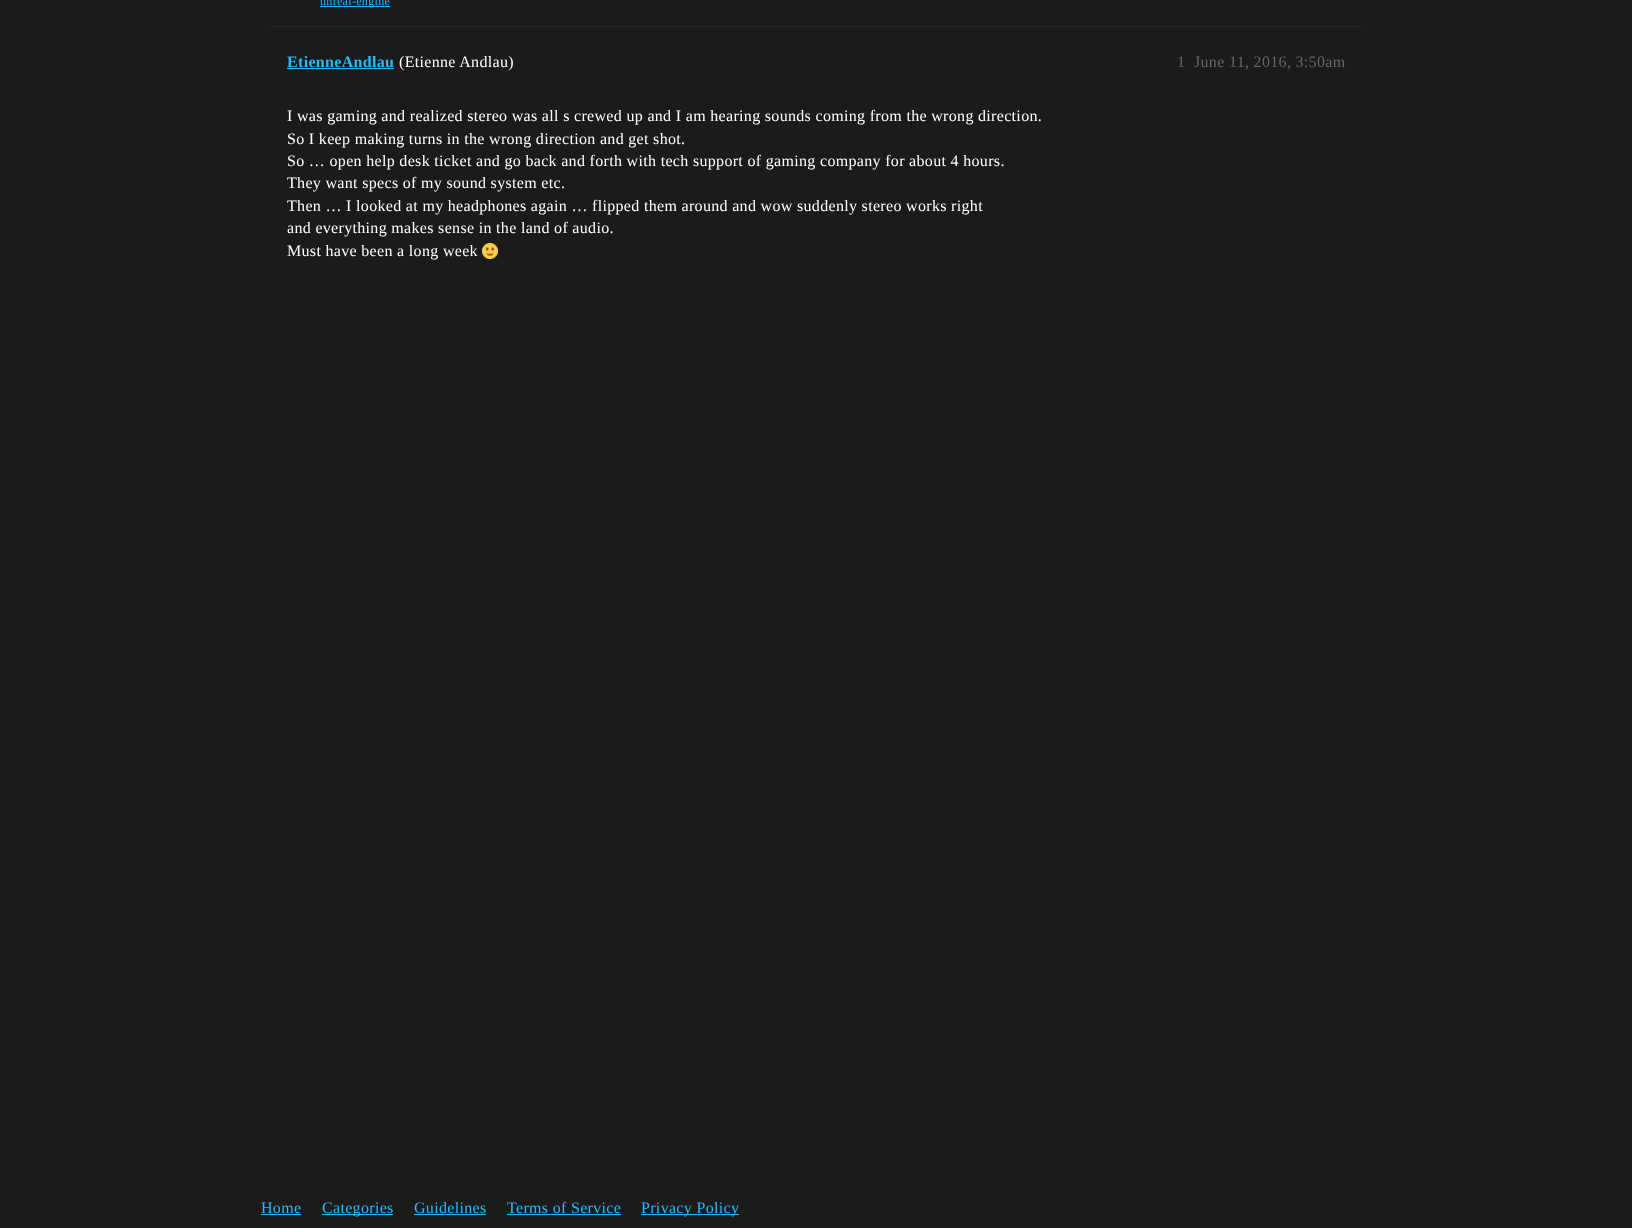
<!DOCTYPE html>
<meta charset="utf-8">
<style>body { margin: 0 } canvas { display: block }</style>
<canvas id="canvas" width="1632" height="1228"></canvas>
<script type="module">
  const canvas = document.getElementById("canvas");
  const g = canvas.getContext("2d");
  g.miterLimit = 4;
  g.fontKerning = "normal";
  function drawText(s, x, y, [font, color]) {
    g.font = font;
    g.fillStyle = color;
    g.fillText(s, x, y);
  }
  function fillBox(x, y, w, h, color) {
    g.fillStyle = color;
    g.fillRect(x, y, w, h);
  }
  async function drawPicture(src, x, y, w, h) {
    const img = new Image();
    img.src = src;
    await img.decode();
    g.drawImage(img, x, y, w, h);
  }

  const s1 = ["12px Liberation Serif", "#26BBFF"];
  const s2 = ["bold 16px Liberation Serif", "#26BBFF"];
  const s3 = ["16px Liberation Serif", "#FFFFFF"];
  const s4 = ["16px Liberation Serif", "#666666"];
  const s5 = ["16px Liberation Serif", "#26BBFF"];

  fillBox(0, 0, 1632, 1228, "#1B1B1B");
  fillBox(320, 6, 70, 1, "#26BBFF");
  g.letterSpacing = "0.32px";
  drawText("unreal-engine", 320, 5, s1);
  fillBox(271, 26, 1090, 1, "#28282C");
  drawText("EtienneAndlau", 287, 67, s2);
  fillBox(287, 68, 107, 1, "#26BBFF");
  drawText("(Etienne Andlau)", 399, 67, s3);
  drawText("1", 1177, 67, s4);
  drawText("June 11, 2016, 3:50am", 1194, 67, s4);
  drawText("I was gaming and realized stereo was all s crewed up and I am hearing sounds coming from the wrong direction.", 287, 121, s3);
  drawText("So I keep making turns in the wrong direction and get shot.", 287, 144, s3);
  drawText("So … open help desk ticket and go back and forth with tech support of gaming company for about 4 hours.", 287, 166, s3);
  drawText("They want specs of my sound system etc.", 287, 188, s3);
  drawText("Then … I looked at my headphones again … flipped them around and wow suddenly stereo works right", 287, 211, s3);
  drawText("and everything makes sense in the land of audio.", 287, 233, s3);
  drawText("Must have been a long week", 287, 256, s3);
  await drawPicture("pic1.png", 482, 243, 16, 16);
  drawText("Home", 261, 1213, s5);
  fillBox(261, 1214, 40, 1, "#26BBFF");
  fillBox(322, 1214, 71, 1, "#26BBFF");
  drawText("Categories", 322, 1213, s5);
  drawText("Guidelines", 414, 1213, s5);
  fillBox(414, 1214, 72, 1, "#26BBFF");
  drawText("Terms of Service", 507, 1213, s5);
  fillBox(507, 1214, 114, 1, "#26BBFF");
  fillBox(641, 1214, 98, 1, "#26BBFF");
  drawText("Privacy Policy", 641, 1213, s5);
</script>
